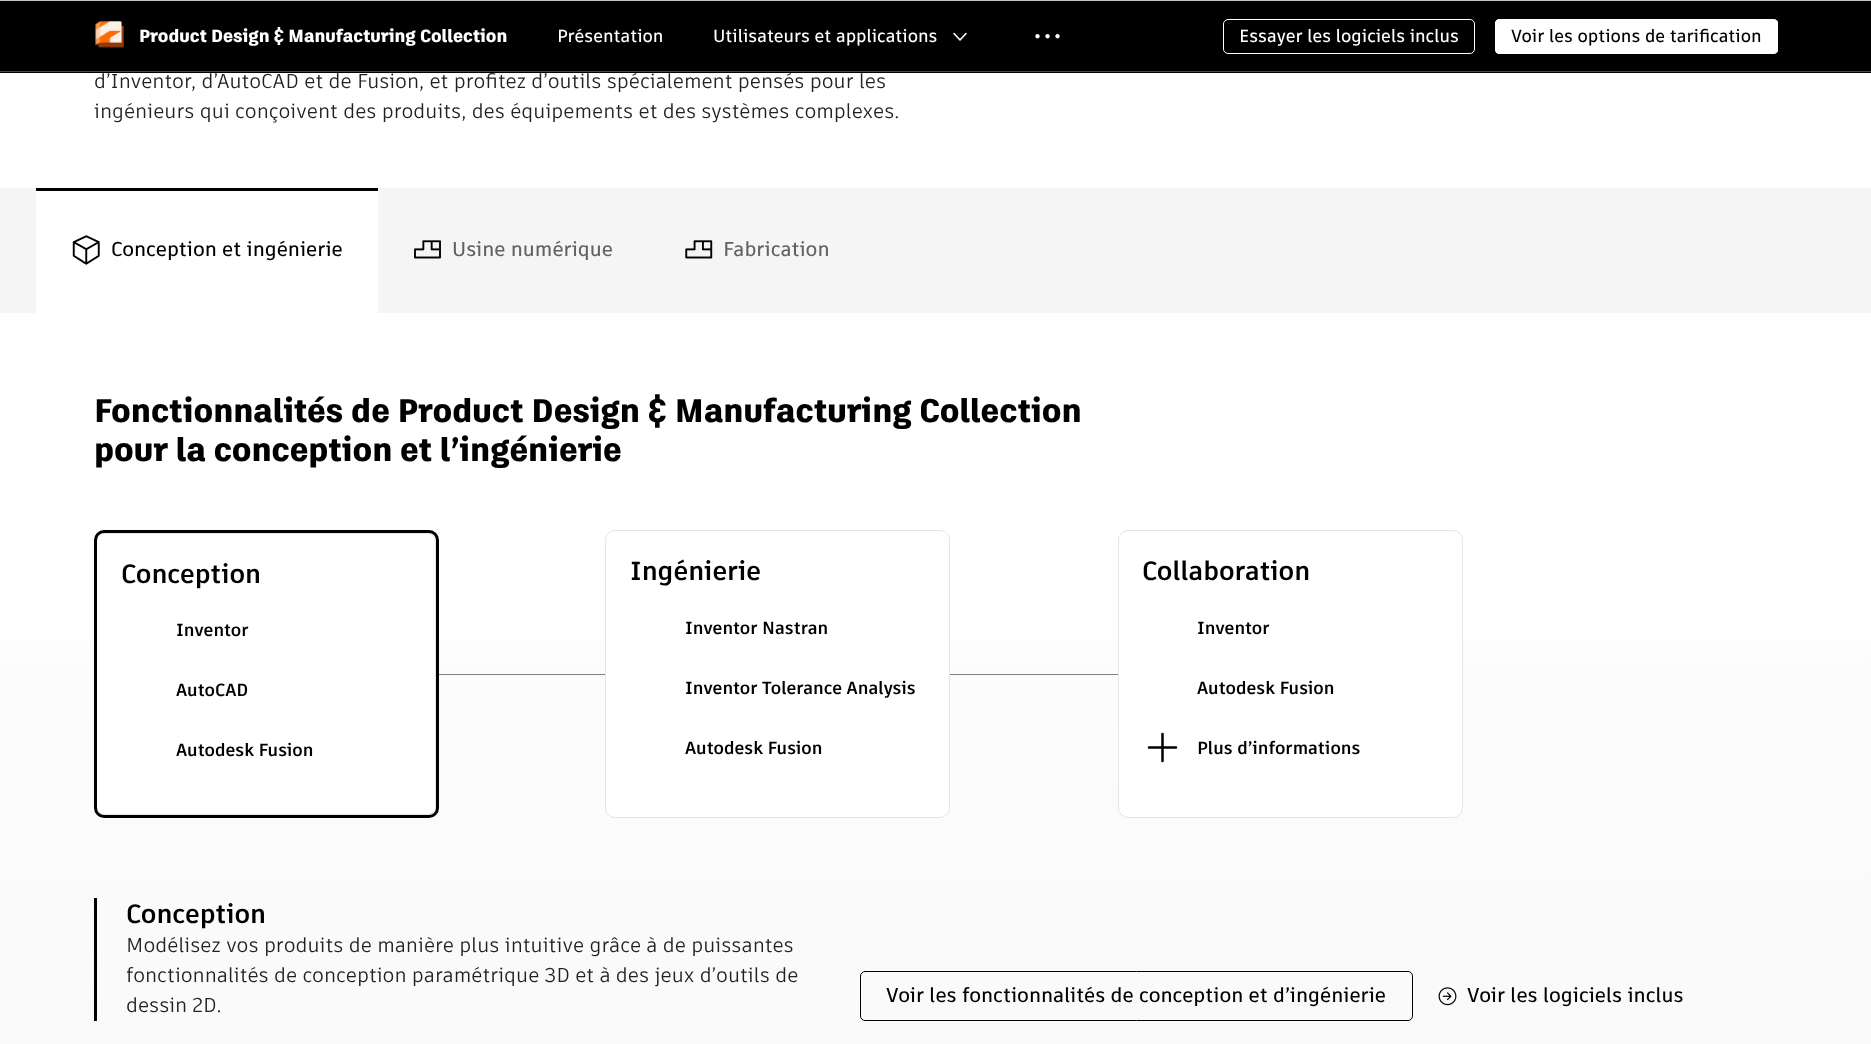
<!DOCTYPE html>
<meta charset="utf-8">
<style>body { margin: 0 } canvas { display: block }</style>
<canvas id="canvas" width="1871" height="1044"></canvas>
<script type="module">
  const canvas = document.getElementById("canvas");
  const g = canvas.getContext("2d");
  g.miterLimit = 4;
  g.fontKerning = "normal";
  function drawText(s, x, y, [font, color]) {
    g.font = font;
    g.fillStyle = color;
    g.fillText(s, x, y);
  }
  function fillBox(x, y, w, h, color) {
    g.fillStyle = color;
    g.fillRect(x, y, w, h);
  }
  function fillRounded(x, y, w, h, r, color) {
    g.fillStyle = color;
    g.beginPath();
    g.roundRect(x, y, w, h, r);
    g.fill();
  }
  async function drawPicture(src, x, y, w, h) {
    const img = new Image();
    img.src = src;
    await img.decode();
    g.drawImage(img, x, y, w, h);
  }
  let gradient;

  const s1 = ["20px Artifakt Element", "#212121"];
  const s2 = ["800 17.5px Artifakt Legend", "#FFFFFF"];
  const s3 = ["600 17.5px Artifakt Element", "#FFFFFF"];
  const s4 = ["600 17.5px Artifakt Element", "#000000"];
  const s5 = ["600 20px Artifakt Element", "#000000"];
  const s6 = ["600 20px Artifakt Element", "#626262"];
  const s7 = ["800 32.5px Artifakt Legend", "#000000"];
  const s8 = ["bold 26.25px Artifakt Element", "#000000"];
  const s9 = ["bold 17.5px Artifakt Element", "#000000"];

  fillBox(0, 0, 1871, 1044, "#FFFFFF");
  drawText("d’Inventor, d’AutoCAD et de Fusion, et profitez d’outils spécialement pensés pour les", 94, 88, s1);
  fillBox(0, 1, 1871, 72, "#000000");
  fillBox(0, 0, 1871, 1, "#BFBFBF");
  fillBox(0, 71, 1871, 1, "#454545");
  await drawPicture("pic1.png", 95, 21, 29, 27);
  drawText("Product Design & Manufacturing Collection", 139, 42, s2);
  drawText("Présentation", 557, 42, s3);
  drawText("Utilisateurs et applications", 713, 42, s3);
  g.beginPath();
  g.moveTo(966, 33.5);
  g.lineTo(960, 40);
  g.lineTo(954, 33.5);
  g.strokeStyle = "#FFFFFF";
  g.lineWidth = 1.6;
  g.lineCap = "round";
  g.lineJoin = "round";
  g.stroke();
  await drawPicture("pic2.png", 1035, 34, 25, 5);
  g.beginPath();
  g.roundRect(1223.5, 19.5, 251, 34, 4.5);
  g.lineWidth = 1;
  g.lineJoin = "miter";
  g.stroke();
  drawText("Essayer les logiciels inclus", 1239, 42, s3);
  g.beginPath();
  g.moveTo(1500, 19);
  g.lineTo(1773, 19);
  g.bezierCurveTo(1775, 19, 1777, 20, 1778, 22);
  g.lineTo(1778, 51);
  g.bezierCurveTo(1777, 53, 1775, 54, 1773, 54);
  g.lineTo(1500, 54);
  g.bezierCurveTo(1497, 54, 1495, 52, 1495, 49);
  g.lineTo(1495, 24);
  g.bezierCurveTo(1495, 21, 1497, 19, 1500, 19);
  g.closePath();
  g.fill();
  g.beginPath();
  g.moveTo(1500, 19);
  g.lineTo(1773, 19);
  g.bezierCurveTo(1775, 19, 1777, 20, 1778, 22);
  g.lineTo(1778, 51);
  g.bezierCurveTo(1777, 53, 1775, 54, 1773, 54);
  g.lineTo(1500, 54);
  g.bezierCurveTo(1497, 54, 1495, 52, 1495, 49);
  g.lineTo(1495, 24);
  g.bezierCurveTo(1495, 21, 1497, 19, 1500, 19);
  g.closePath();
  g.moveTo(1500, 20);
  g.bezierCurveTo(1498, 20, 1496, 22, 1496, 24);
  g.lineTo(1496, 49);
  g.bezierCurveTo(1496, 51, 1498, 53, 1500, 53);
  g.lineTo(1773, 53);
  g.bezierCurveTo(1775, 53, 1777, 51, 1777, 49);
  g.lineTo(1777, 24);
  g.bezierCurveTo(1777, 22, 1775, 20, 1773, 20);
  g.closePath();
  g.fill("evenodd");
  drawText("Voir les options de tarification", 1511, 42, s4);
  drawText("ingénieurs qui conçoivent des produits, des équipements et des systèmes complexes.", 94, 118, s1);
  fillBox(0, 188, 1871, 125, "#F5F5F5");
  fillBox(36, 191, 342, 122, "#FFFFFF");
  fillBox(36, 188, 342, 3, "#000000");
  await drawPicture("pic3.png", 72, 235, 28, 30);
  drawText("Conception et ingénierie", 111, 256, s5);
  await drawPicture("pic4.png", 414, 240, 27, 19);
  drawText("Usine numérique", 452, 256, s6);
  await drawPicture("pic5.png", 685, 240, 28, 19);
  drawText("Fabrication", 723, 256, s6);
  gradient = g.createLinearGradient(936, 312, 936, 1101);
  gradient.addColorStop(0, "#FFFFFF");
  gradient.addColorStop(1, "#F9F9F9");
  g.fillStyle = gradient;
  g.fillRect(0, 641, 1871, 403);
  drawText("Fonctionnalités de Product Design & Manufacturing Collection", 94, 422, s7);
  drawText("pour la conception et l’ingénierie", 94, 461, s7);
  fillRounded(94, 530, 345, 288, 10, "#FFFFFF");
  g.beginPath();
  g.roundRect(96.5, 533.5, 339, 281, 7.5);
  g.strokeStyle = "#E6E6E6";
  g.stroke();
  g.beginPath();
  g.roundRect(95.5, 531.5, 342, 285, 8.5);
  g.strokeStyle = "#000000";
  g.lineWidth = 3;
  g.stroke();
  drawText("Conception", 121, 583, s8);
  drawText("Inventor", 176, 636, s9);
  drawText("AutoCAD", 176, 696, s9);
  drawText("Autodesk Fusion", 176, 756, s9);
  fillBox(439, 674, 166, 1, "#808080");
  g.fillStyle = "#FFFFFF";
  g.beginPath();
  g.roundRect(605.5, 530.5, 344, 287, 9.5);
  g.fill();
  g.strokeStyle = "#E5E5E5";
  g.lineWidth = 1;
  g.stroke();
  drawText("Ingénierie", 630, 580, s8);
  drawText("Inventor Nastran", 685, 634, s9);
  drawText("Inventor Tolerance Analysis", 685, 694, s9);
  drawText("Autodesk Fusion", 685, 754, s9);
  fillBox(950, 674, 168, 1, "#808080");
  g.fillStyle = "#FFFFFF";
  g.beginPath();
  g.roundRect(1118.5, 530.5, 344, 287, 9.5);
  g.fill();
  g.stroke();
  drawText("Collaboration", 1142, 580, s8);
  drawText("Inventor", 1197, 634, s9);
  drawText("Autodesk Fusion", 1197, 694, s9);
  g.beginPath();
  g.moveTo(1162.5, 734);
  g.lineTo(1162.5, 747.5);
  g.moveTo(1162.5, 761);
  g.lineTo(1162.5, 747.5);
  g.moveTo(1162.5, 747.5);
  g.lineTo(1149, 747.5);
  g.moveTo(1162.5, 747.5);
  g.lineTo(1176, 747.5);
  g.strokeStyle = "#000000";
  g.lineWidth = 2.5;
  g.stroke();
  drawText("Plus d’informations", 1197, 754, s9);
  fillBox(94, 898, 3, 123, "#000000");
  drawText("Conception", 126, 923, s8);
  drawText("Modélisez vos produits de manière plus intuitive grâce à de puissantes", 126, 952, s1);
  drawText("fonctionnalités de conception paramétrique 3D et à des jeux d’outils de", 126, 982, s1);
  drawText("dessin 2D.", 126, 1012, s1);
  g.beginPath();
  g.roundRect(860.5, 971.5, 552, 49, 4.5);
  g.lineWidth = 1;
  g.stroke();
  drawText("Voir les fonctionnalités de conception et d’ingénierie", 886, 1002, s5);
  await drawPicture("pic6.png", 1438, 987, 19, 19);
  drawText("Voir les logiciels inclus", 1467, 1002, s5);
</script>
